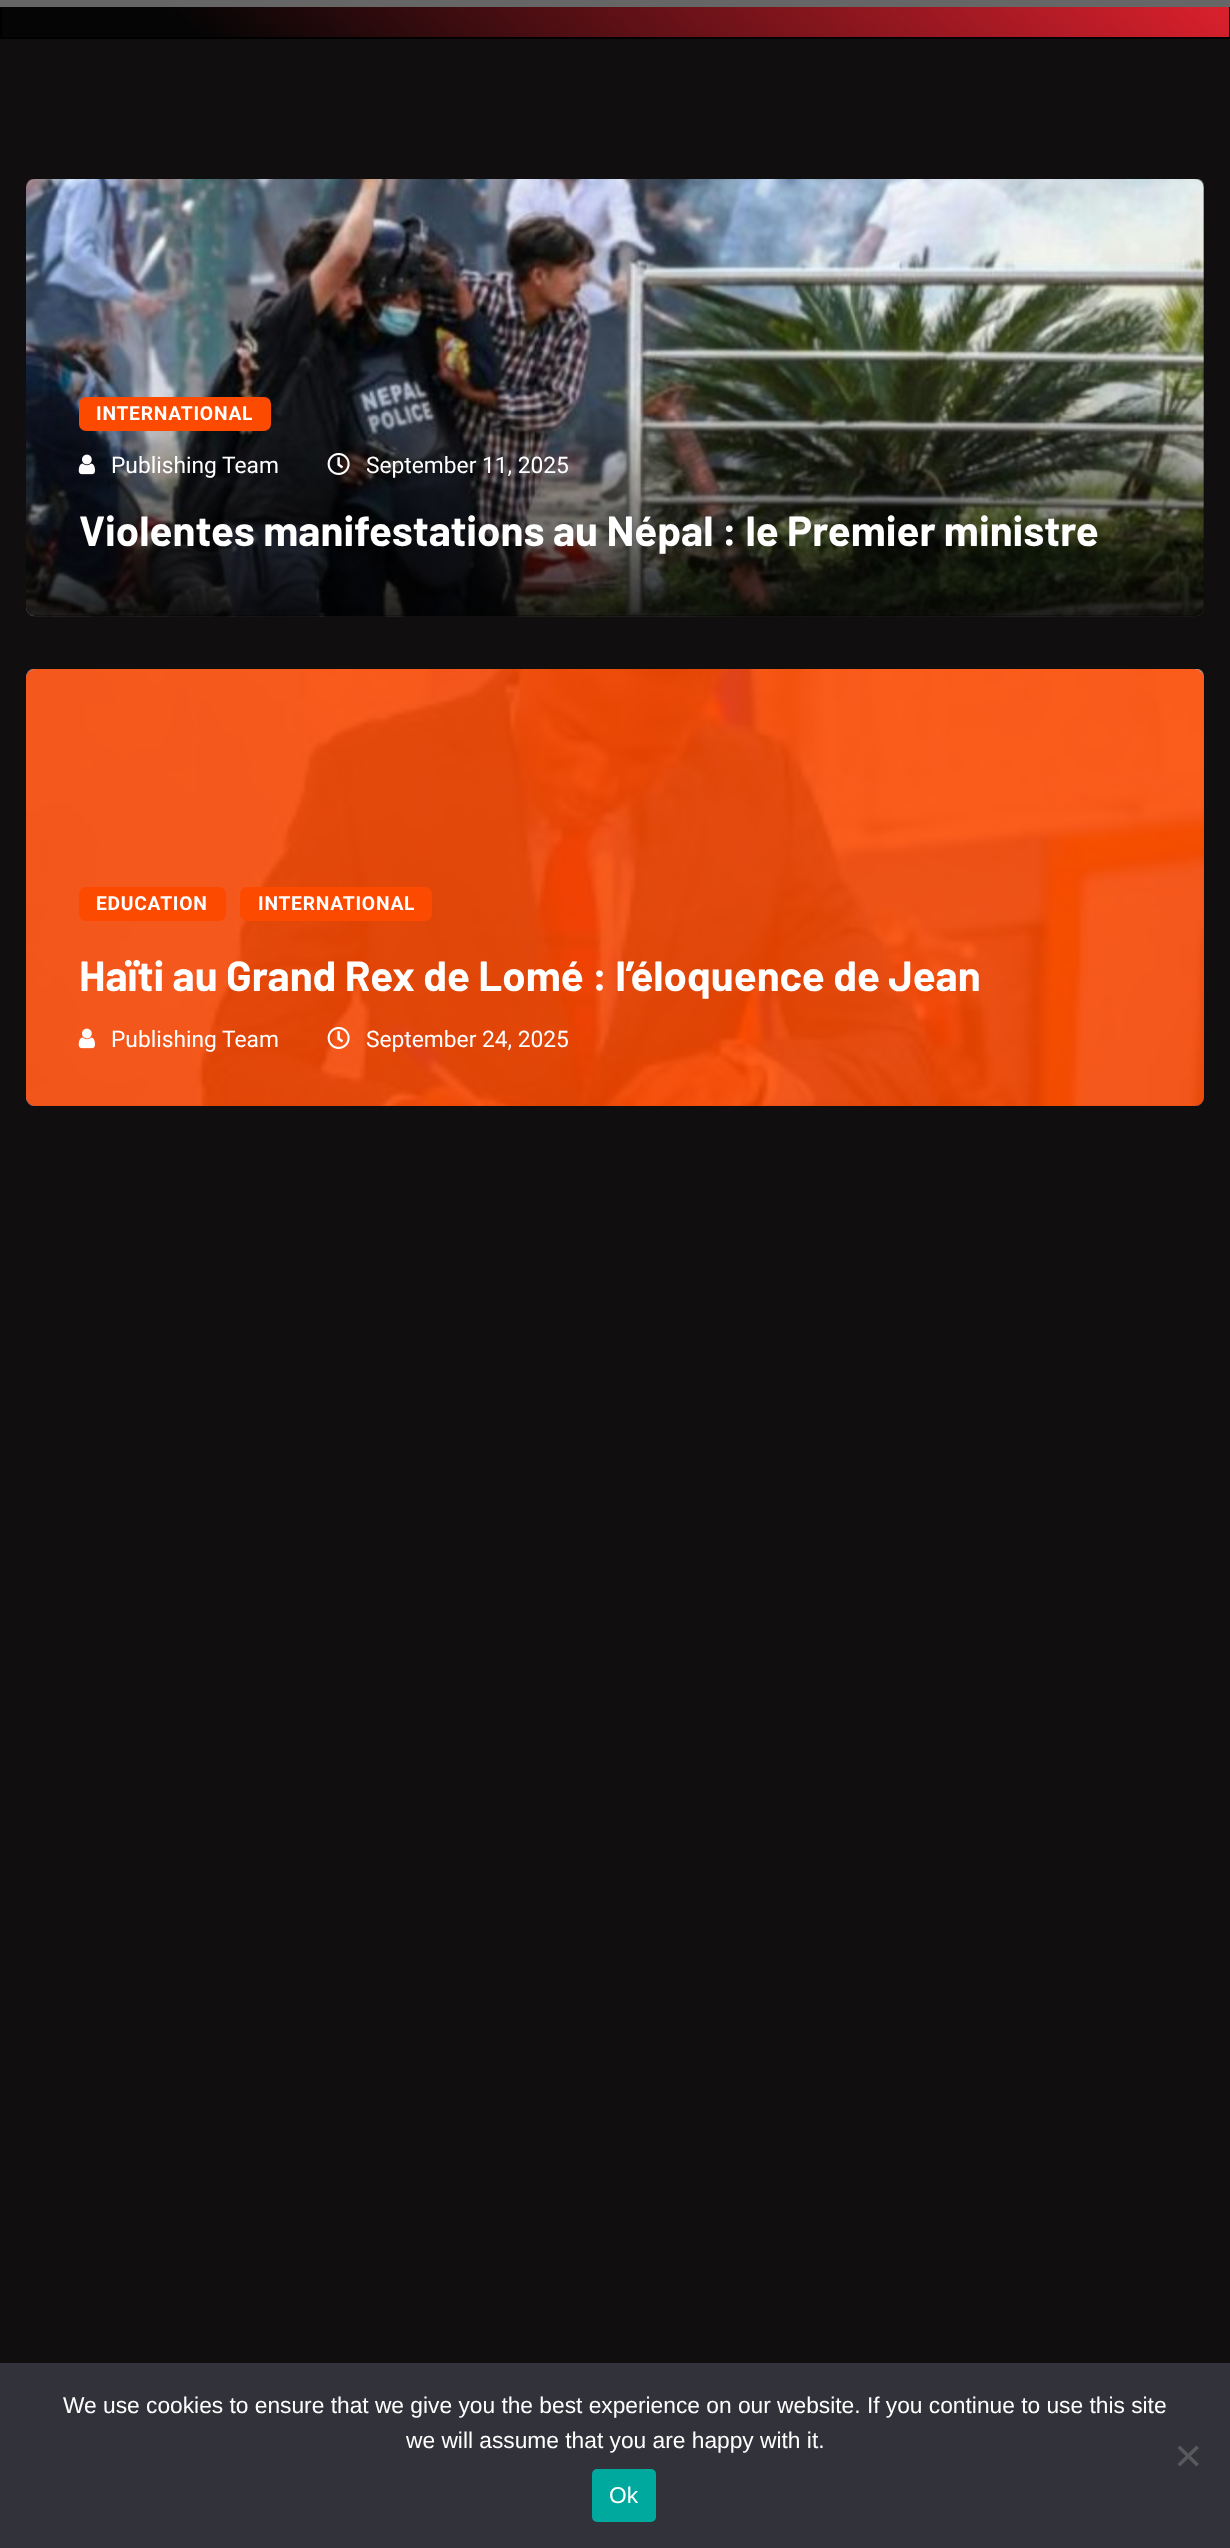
<!DOCTYPE html>
<meta charset="utf-8">
<style>body { margin: 0 } canvas { display: block }</style>
<canvas id="canvas" width="1230" height="2548"></canvas>
<script type="module">
  const canvas = document.getElementById("canvas");
  const g = canvas.getContext("2d");
  g.miterLimit = 4;
  g.fontKerning = "normal";
  function drawText(s, x, y, [font, color]) {
    g.font = font;
    g.fillStyle = color;
    g.fillText(s, x, y);
  }
  function fillBox(x, y, w, h, color) {
    g.fillStyle = color;
    g.fillRect(x, y, w, h);
  }
  function fillRounded(x, y, w, h, r, color) {
    g.fillStyle = color;
    g.beginPath();
    g.roundRect(x, y, w, h, r);
    g.fill();
  }
  async function drawPicture(src, x, y, w, h) {
    const img = new Image();
    img.src = src;
    await img.decode();
    g.drawImage(img, x, y, w, h);
  }
  let gradient;

  const s1 = ["bold 19.25px Roboto", "#FFFFFF"];
  const s2 = ["22.75px Roboto", "#FFFFFF"];
  const s3 = ["bold 42px Barlow", "#FFFFFF"];
  const s4 = ["22.75px Liberation Sans", "#FFFFFF"];

  fillBox(0, 0, 1230, 2548, "#100E0E");
  fillBox(0, 0, 1230, 7, "#676666");
  fillBox(0, 7, 1230, 32, "#000000");
  gradient = g.createLinearGradient(890, -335, 340, 321);
  gradient.addColorStop(0.03, "#E0212E");
  gradient.addColorStop(0.85, "#050505");
  g.fillStyle = gradient;
  g.fillRect(2, 7, 1227, 30);
  await drawPicture("pic1.png", 26, 179, 1178, 438);
  gradient = g.createLinearGradient(615, 178, 615, 616);
  gradient.addColorStop(0.5, "rgba(0, 0, 0, 0)");
  gradient.addColorStop(1, "rgba(0, 0, 0, 0.8)");
  g.fillStyle = gradient;
  g.beginPath();
  g.roundRect(26, 179, 1178, 437, 9);
  g.fill();
  fillRounded(79, 397, 192, 34, 7, "#FC4A00");
  g.letterSpacing = "0.75px";
  drawText("INTERNATIONAL", 96, 420, s1);
  await drawPicture("pic2.png", 78, 454, 17, 21);
  g.letterSpacing = "0px";
  drawText("Publishing Team", 111, 473, s2);
  await drawPicture("pic3.png", 327, 452, 23, 23);
  drawText("September 11, 2025", 366, 473, s2);
  drawText("Violentes manifestations au Népal : le Premier ministre", 79, 546, s3);
  await drawPicture("pic4.png", 26, 669, 1178, 437);
  fillRounded(26, 669, 1178, 437, 9, "rgba(252, 74, 0, 0.89)");
  fillRounded(79, 887, 147, 34, 7, "#FC4A00");
  g.letterSpacing = "0.75px";
  drawText("EDUCATION", 96, 910, s1);
  fillRounded(240, 887, 192, 34, 7, "#FC4A00");
  drawText("INTERNATIONAL", 258, 910, s1);
  g.letterSpacing = "0px";
  drawText("Haïti au Grand Rex de Lomé : l’éloquence de Jean", 79, 991, s3);
  await drawPicture("pic5.png", 78, 1028, 17, 21);
  drawText("Publishing Team", 111, 1047, s2);
  await drawPicture("pic6.png", 327, 1026, 23, 23);
  drawText("September 24, 2025", 366, 1047, s2);
  fillBox(0, 2363, 1230, 185, "#32323A");
  drawText("We use cookies to ensure that we give you the best experience on our website. If you continue to use this site", 63, 2413, s4);
  drawText("we will assume that you are happy with it.", 406, 2448, s4);
  g.fillStyle = "#59595D";
  g.beginPath();
  g.moveTo(1196.5, 2445.5);
  g.lineTo(1199, 2448);
  g.lineTo(1180, 2466.5);
  g.lineTo(1177.5, 2464);
  g.closePath();
  g.fill();
  g.beginPath();
  g.moveTo(1177.5, 2448);
  g.lineTo(1180, 2445.5);
  g.lineTo(1199, 2464);
  g.lineTo(1196.5, 2466.5);
  g.closePath();
  g.fill();
  fillRounded(592, 2469, 64, 53, 5, "#00A99D");
  drawText("Ok", 609, 2503, s4);
</script>
